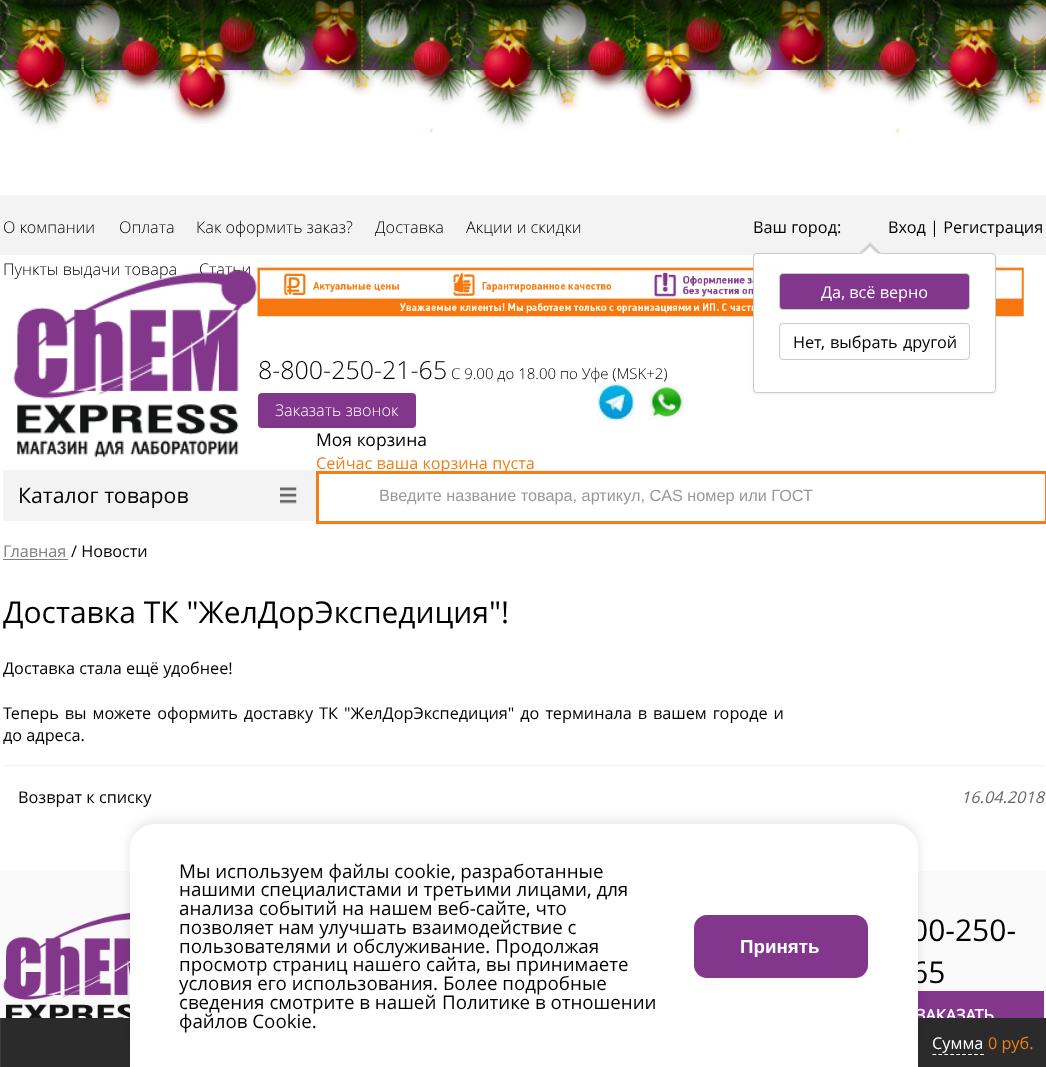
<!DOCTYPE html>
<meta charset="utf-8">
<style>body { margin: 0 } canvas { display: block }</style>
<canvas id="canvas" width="1046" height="1067"></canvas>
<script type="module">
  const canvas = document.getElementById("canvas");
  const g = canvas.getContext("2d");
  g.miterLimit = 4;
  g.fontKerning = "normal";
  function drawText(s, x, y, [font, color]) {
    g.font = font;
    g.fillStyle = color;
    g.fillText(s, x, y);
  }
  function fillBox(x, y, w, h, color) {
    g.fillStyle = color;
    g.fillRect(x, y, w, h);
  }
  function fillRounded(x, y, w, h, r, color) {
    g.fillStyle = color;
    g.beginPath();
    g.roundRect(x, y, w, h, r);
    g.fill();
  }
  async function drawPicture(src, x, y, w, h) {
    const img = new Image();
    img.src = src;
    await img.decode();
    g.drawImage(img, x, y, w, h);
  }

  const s1 = ["bold 16.25px Open Sans", "#FFFFFF"];
  const s2 = ["300 16.25px Open Sans", "#000000"];
  const s3 = ["16.25px Open Sans", "#000000"];
  const s4 = ["16.25px Open Sans", "#FFFFFF"];
  const s5 = ["300 25px Open Sans", "#000000"];
  const s6 = ["300 15px Open Sans", "#000000"];
  const s7 = ["300 16.25px Open Sans", "#FFFFFF"];
  const s8 = ["17.5px Open Sans", "#000000"];
  const s9 = ["16.25px Open Sans", "#F07F19"];
  const s10 = ["21.25px Open Sans", "#000000"];
  const s11 = ["16.25px Liberation Sans", "#999999"];
  const s12 = ["16.25px Open Sans", "#808080"];
  const s13 = ["30px Open Sans", "#000000"];
  const s14 = ["italic 16.25px Open Sans", "#666666"];
  const s15 = ["bold 16.25px 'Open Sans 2'", "#FFFFFF"];
  const s16 = ["18.75px Open Sans", "#000000"];
  const s17 = ["bold 18.75px Liberation Sans", "#FFFFFF"];

  fillBox(0, 0, 1046, 1067, "#FFFFFF");
  fillBox(0, 0, 1046, 70, "#82378D");
  drawText(".", 551, 53, s1);
  await drawPicture("pic1.png", 0, 0, 1046, 133);
  await drawPicture("pic3.png", 8, 0, 65, 102);
  await drawPicture("pic2.png", 0, 0, 32, 89);
  await drawPicture("pic5.png", 67, 0, 62, 59);
  await drawPicture("pic4.png", 31, 0, 76, 34);
  await drawPicture("pic6.png", 171, 0, 63, 124);
  await drawPicture("pic7.png", 212, 0, 51, 66);
  await drawPicture("pic13.png", 255, 7, 57, 83);
  await drawPicture("pic8.png", 221, 0, 36, 39);
  await drawPicture("pic10.png", 304, 0, 61, 79);
  await drawPicture("pic9.png", 256, 0, 63, 63);
  await drawPicture("pic11.png", 359, 0, 57, 61);
  await drawPicture("pic12.png", 115, 11, 51, 80);
  await drawPicture("pic16.png", 406, 12, 51, 79);
  await drawPicture("pic14.png", 361, 0, 98, 35);
  await drawPicture("pic15.png", 458, 0, 9, 86);
  await drawPicture("pic18.png", 474, 0, 65, 102);
  await drawPicture("pic17.png", 466, 0, 32, 89);
  await drawPicture("pic20.png", 534, 0, 61, 59);
  await drawPicture("pic19.png", 497, 0, 77, 34);
  await drawPicture("pic21.png", 637, 0, 63, 124);
  await drawPicture("pic22.png", 678, 0, 51, 66);
  await drawPicture("pic28.png", 721, 7, 58, 83);
  await drawPicture("pic23.png", 687, 0, 36, 39);
  await drawPicture("pic25.png", 771, 0, 60, 79);
  await drawPicture("pic24.png", 722, 0, 63, 63);
  await drawPicture("pic26.png", 825, 0, 58, 61);
  await drawPicture("pic27.png", 581, 11, 51, 80);
  await drawPicture("pic31.png", 872, 12, 52, 79);
  await drawPicture("pic29.png", 827, 0, 98, 35);
  await drawPicture("pic30.png", 925, 0, 8, 86);
  await drawPicture("pic33.png", 941, 0, 65, 102);
  await drawPicture("pic32.png", 932, 0, 32, 89);
  await drawPicture("pic35.png", 1000, 0, 46, 59);
  await drawPicture("pic34.png", 963, 0, 77, 34);
  g.fillStyle = "rgba(0, 0, 0, 0.75)";
  g.filter = "blur(19px)";
  g.beginPath();
  g.rect(0, -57, 1046, 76);
  g.fill();
  g.filter = "none";
  fillBox(0, 195, 1046, 60, "#F3F3F3");
  drawText("О компании", 3, 233, s2);
  drawText("Оплата", 119, 233, s2);
  drawText("Как оформить заказ?", 196, 233, s2);
  drawText("Доставка", 375, 233, s2);
  drawText("Акции и скидки", 466, 233, s2);
  drawText("Пункты выдачи товара", 3, 275, s2);
  drawText("Статьи", 199, 275, s2);
  drawText("Ваш город:", 753, 233, s3);
  await drawPicture("pic38.png", 257, 267, 767, 50);
  g.fillStyle = "rgba(37, 40, 43, 0.1)";
  g.filter = "blur(1px)";
  g.beginPath();
  g.roundRect(753, 254, 243, 140, 4);
  g.fill();
  g.filter = "none";
  g.fillStyle = "#FFFFFF";
  g.beginPath();
  g.roundRect(753.5, 253.5, 242, 139, 3.5);
  g.fill();
  g.strokeStyle = "#CBCBCB";
  g.stroke();
  await drawPicture("pic36.png", 857, 242, 26, 12);
  g.fillStyle = "#82378D";
  g.beginPath();
  g.roundRect(779.5, 273.5, 190, 36, 3.5);
  g.fill();
  g.stroke();
  drawText("Да, всё верно", 821, 298, s4);
  g.beginPath();
  g.roundRect(779.5, 323.5, 190, 36, 3.5);
  g.stroke();
  g.wordSpacing = "1px";
  drawText("Нет, выбрать другой", 793, 348, s3);
  g.wordSpacing = "0px";
  drawText("Вход | Регистрация", 888, 233, s3);
  await drawPicture("pic37.png", 13, 269, 244, 189);
  drawText("8-800-250-21-65", 258, 379, s5);
  drawText("С 9.00 до 18.00 по Уфе (MSK+2)", 451, 379, s6);
  fillRounded(258, 393, 158, 35, 4, "#82378D");
  drawText("Заказать звонок", 275, 416, s7);
  await drawPicture("pic39.png", 597, 383, 38, 39);
  await drawPicture("pic40.png", 649, 384, 35, 36);
  drawText("Моя корзина", 316, 446, s8);
  g.strokeStyle = "#F2F2F2";
  g.strokeRect(315.5, 470.5, 728, 54);
  drawText("Сейчас ваша корзина пуста", 316, 469, s9);
  fillBox(3, 470, 312, 51, "#F3F3F3");
  drawText("Каталог товаров", 18, 503, s10);
  await drawPicture("pic41.png", 280, 487, 17, 17);
  g.strokeStyle = "#F07F19";
  g.lineWidth = 3;
  g.strokeRect(317.5, 472.5, 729, 50);
  drawText("Введите название товара, артикул, CAS номер или ГОСТ", 379, 501, s11);
  drawText("Главная", 3, 557, s12);
  fillBox(3, 559, 65, 1, "#808080");
  drawText("/ Новости", 71, 557, s3);
  drawText("Доставка ТК \"ЖелДорЭкспедиция\"!", 3, 623, s13);
  drawText("Доставка стала ещё удобнее!", 3, 674, s3);
  g.wordSpacing = "1.75px";
  drawText("Теперь вы можете оформить доставку ТК \"ЖелДорЭкспедиция\" до терминала в вашем городе и", 3, 719, s3);
  g.wordSpacing = "0px";
  drawText("до адреса.", 3, 741, s3);
  fillBox(3, 765, 1041, 1, "#F2F2F2");
  drawText("Возврат к списку", 18, 803, s3);
  drawText("16.04.2018", 961, 803, s14);
  fillBox(0, 871, 1046, 147, "#FAFAFA");
  await drawPicture("pic42.png", 3, 913, 127, 105);
  fillBox(918, 991, 126, 27, "#82378D");
  drawText("ЗАКАЗАТЬ", 916, 1021, s15);
  fillBox(1, 1018, 1045, 49, "#2B2B2B");
  g.beginPath();
  g.moveTo(932.5, 1054.5);
  g.lineTo(984, 1054.5);
  g.strokeStyle = "#FFFFFF";
  g.lineWidth = 1.2;
  g.setLineDash([3.75, 2.19]);
  g.stroke();
  g.fillStyle = "rgba(0, 0, 0, 0.1)";
  g.filter = "blur(6px)";
  g.beginPath();
  g.roundRect(130, 821, 788, 244, 25);
  g.fill();
  g.filter = "none";
  drawText("00-250-", 911, 941, s13);
  drawText("65", 911, 983, s13);
  g.fillStyle = "#FFFFFF";
  g.beginPath();
  g.moveTo(155, 824);
  g.lineTo(893, 824);
  g.bezierCurveTo(907, 824, 918, 835, 918, 849);
  g.lineTo(918, 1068);
  g.lineTo(130, 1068);
  g.lineTo(130, 849);
  g.bezierCurveTo(130, 835, 141, 824, 155, 824);
  g.closePath();
  g.fill();
  drawText("Мы используем файлы cookie, разработанные", 179, 878, s16);
  drawText("нашими специалистами и третьими лицами, для", 179, 896, s16);
  drawText("анализа событий на нашем веб-сайте, что", 179, 915, s16);
  drawText("позволяет нам улучшать взаимодействие с", 179, 934, s16);
  drawText("пользователями и обслуживание. Продолжая", 179, 953, s16);
  drawText("просмотр страниц нашего сайта, вы принимаете", 179, 971, s16);
  drawText("условия его использования. Более подробные", 179, 990, s16);
  drawText("сведения смотрите в нашей", 179, 1009, s16);
  drawText("Политике в отношении", 442, 1009, s16);
  drawText("файлов Cookie.", 179, 1028, s16);
  fillRounded(694, 915, 174, 63, 13, "#82378D");
  drawText("Принять", 740, 953, s17);
  fillBox(0, 1018, 1, 49, "#3C3C3C");
  drawText("Сумма", 932, 1049, s4);
  drawText("0 руб.", 988, 1049, s9);
</script>
